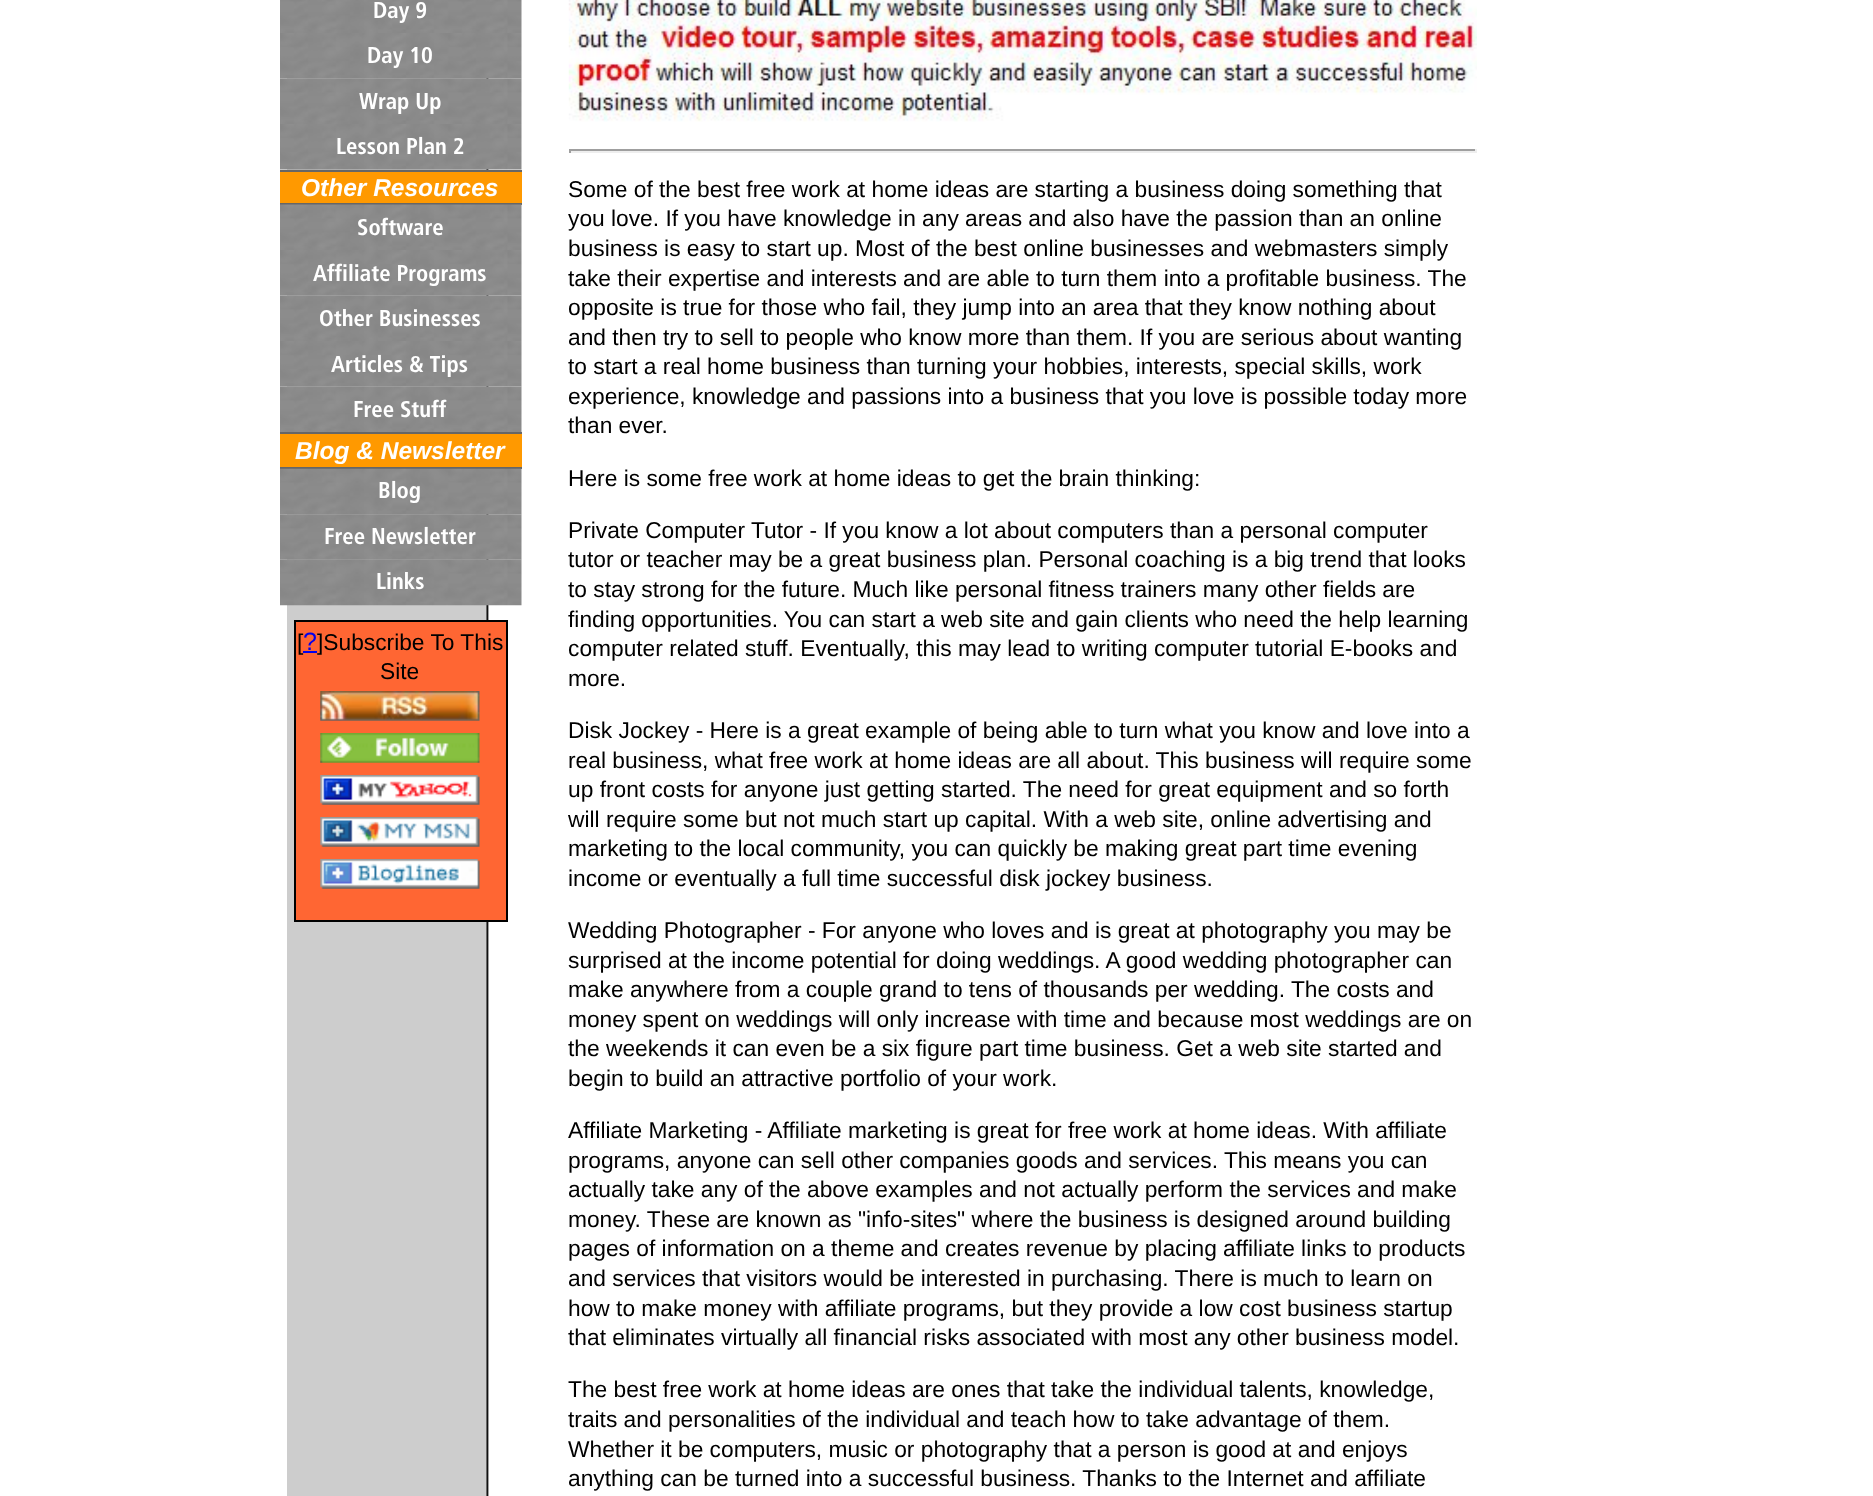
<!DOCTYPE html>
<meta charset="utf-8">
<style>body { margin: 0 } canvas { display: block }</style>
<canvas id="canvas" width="1873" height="1496"></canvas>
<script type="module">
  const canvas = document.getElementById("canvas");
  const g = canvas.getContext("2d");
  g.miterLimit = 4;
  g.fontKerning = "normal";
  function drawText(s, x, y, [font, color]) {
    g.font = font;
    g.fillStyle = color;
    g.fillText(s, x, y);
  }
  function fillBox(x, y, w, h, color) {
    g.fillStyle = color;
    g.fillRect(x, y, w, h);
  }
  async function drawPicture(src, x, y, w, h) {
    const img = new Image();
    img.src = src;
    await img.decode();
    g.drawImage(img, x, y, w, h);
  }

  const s1 = ["22.75px Frutiger", "#FFFFFF"];
  const s2 = ["italic bold 24.5px Liberation Sans", "#FFFFFF"];
  const s3 = ["22.75px Liberation Sans", "#000000"];
  const s4 = ["25px Liberation Sans", "#0000EE"];

  fillBox(0, 0, 1873, 1496, "#FFFFFF");
  await drawPicture("pic1.png", 287, 78, 202, 1418);
  await drawPicture("pic2.png", 280, 0, 242, 33);
  drawText("Day 9", 373, 18, s1);
  await drawPicture("pic3.png", 280, 33, 242, 46);
  drawText("Day 10", 367, 63, s1);
  await drawPicture("pic4.png", 280, 78, 242, 46);
  drawText("Wrap Up", 359, 109, s1);
  await drawPicture("pic5.png", 280, 124, 242, 46);
  drawText("Lesson Plan 2", 336, 154, s1);
  fillBox(280, 172, 242, 31, "#FF9900");
  fillBox(280, 170, 242, 2, "#666666");
  fillBox(280, 203, 242, 2, "#666666");
  drawText("Other Resources", 301, 196, s2);
  await drawPicture("pic6.png", 280, 204, 242, 46);
  drawText("Software", 357, 235, s1);
  await drawPicture("pic7.png", 280, 250, 242, 46);
  drawText("Affiliate Programs", 313, 281, s1);
  await drawPicture("pic8.png", 280, 295, 242, 46);
  drawText("Other Businesses", 319, 326, s1);
  await drawPicture("pic9.png", 280, 341, 242, 46);
  drawText("Articles & Tips", 331, 372, s1);
  await drawPicture("pic10.png", 280, 386, 242, 46);
  drawText("Free Stuff", 353, 417, s1);
  fillBox(280, 434, 242, 33, "#FF9900");
  fillBox(280, 432, 242, 2, "#666666");
  fillBox(280, 467, 242, 2, "#666666");
  drawText("Blog & Newsletter", 295, 459, s2);
  await drawPicture("pic11.png", 280, 468, 242, 47);
  drawText("Blog", 378, 498, s1);
  await drawPicture("pic12.png", 280, 514, 242, 46);
  drawText("Free Newsletter", 324, 544, s1);
  await drawPicture("pic13.png", 280, 559, 242, 47);
  drawText("Links", 376, 589, s1);
  g.fillStyle = "#FF6633";
  g.beginPath();
  g.rect(295, 621, 212, 300);
  g.fill();
  g.strokeStyle = "#000000";
  g.lineWidth = 2;
  g.stroke();
  drawText("[", 297, 650, s3);
  drawText("?", 303, 650, s4);
  fillBox(303, 651, 14, 2, "#0000EE");
  drawText("]Subscribe To This", 317, 650, s3);
  drawText("Site", 380, 679, s3);
  await drawPicture("pic14.png", 320, 691, 160, 30);
  await drawPicture("pic15.png", 320, 733, 160, 30);
  await drawPicture("pic16.png", 320, 775, 160, 30);
  await drawPicture("pic17.png", 320, 817, 160, 30);
  await drawPicture("pic18.png", 320, 859, 160, 30);
  await drawPicture("pic19.png", 568, 0, 909, 122);
  fillBox(569, 149, 908, 2, "#9F9F9F");
  fillBox(1475, 149, 2, 4, "#EEEEEE");
  fillBox(569, 151, 908, 2, "#EEEEEE");
  fillBox(569, 149, 2, 4, "#9F9F9F");
  drawText("Some of the best free work at home ideas are starting a business doing something that", 568, 197, s3);
  drawText("you love. If you have knowledge in any areas and also have the passion than an online", 568, 226, s3);
  drawText("business is easy to start up. Most of the best online businesses and webmasters simply", 568, 256, s3);
  drawText("take their expertise and interests and are able to turn them into a profitable business. The", 568, 286, s3);
  drawText("opposite is true for those who fail, they jump into an area that they know nothing about", 568, 315, s3);
  drawText("and then try to sell to people who know more than them. If you are serious about wanting", 568, 345, s3);
  drawText("to start a real home business than turning your hobbies, interests, special skills, work", 568, 374, s3);
  drawText("experience, knowledge and passions into a business that you love is possible today more", 568, 404, s3);
  drawText("than ever.", 568, 433, s3);
  drawText("Here is some free work at home ideas to get the brain thinking:", 568, 486, s3);
  drawText("Private Computer Tutor - If you know a lot about computers than a personal computer", 568, 538, s3);
  drawText("tutor or teacher may be a great business plan. Personal coaching is a big trend that looks", 568, 567, s3);
  drawText("to stay strong for the future. Much like personal fitness trainers many other fields are", 568, 597, s3);
  drawText("finding opportunities. You can start a web site and gain clients who need the help learning", 568, 627, s3);
  drawText("computer related stuff. Eventually, this may lead to writing computer tutorial E-books and", 568, 656, s3);
  drawText("more.", 568, 686, s3);
  drawText("Disk Jockey - Here is a great example of being able to turn what you know and love into a", 568, 738, s3);
  drawText("real business, what free work at home ideas are all about. This business will require some", 568, 768, s3);
  drawText("up front costs for anyone just getting started. The need for great equipment and so forth", 568, 797, s3);
  drawText("will require some but not much start up capital. With a web site, online advertising and", 568, 827, s3);
  drawText("marketing to the local community, you can quickly be making great part time evening", 568, 856, s3);
  drawText("income or eventually a full time successful disk jockey business.", 568, 886, s3);
  drawText("Wedding Photographer - For anyone who loves and is great at photography you may be", 568, 938, s3);
  drawText("surprised at the income potential for doing weddings. A good wedding photographer can", 568, 968, s3);
  drawText("make anywhere from a couple grand to tens of thousands per wedding. The costs and", 568, 997, s3);
  drawText("money spent on weddings will only increase with time and because most weddings are on", 568, 1027, s3);
  drawText("the weekends it can even be a six figure part time business. Get a web site started and", 568, 1056, s3);
  drawText("begin to build an attractive portfolio of your work.", 568, 1086, s3);
  drawText("Affiliate Marketing - Affiliate marketing is great for free work at home ideas. With affiliate", 568, 1138, s3);
  drawText("programs, anyone can sell other companies goods and services. This means you can", 568, 1168, s3);
  drawText("actually take any of the above examples and not actually perform the services and make", 568, 1197, s3);
  drawText("money. These are known as \"info-sites\" where the business is designed around building", 568, 1227, s3);
  drawText("pages of information on a theme and creates revenue by placing affiliate links to products", 568, 1256, s3);
  drawText("and services that visitors would be interested in purchasing. There is much to learn on", 568, 1286, s3);
  drawText("how to make money with affiliate programs, but they provide a low cost business startup", 568, 1316, s3);
  drawText("that eliminates virtually all financial risks associated with most any other business model.", 568, 1345, s3);
  drawText("The best free work at home ideas are ones that take the individual talents, knowledge,", 568, 1397, s3);
  drawText("traits and personalities of the individual and teach how to take advantage of them.", 568, 1427, s3);
  drawText("Whether it be computers, music or photography that a person is good at and enjoys", 568, 1457, s3);
  drawText("anything can be turned into a successful business. Thanks to the Internet and affiliate", 568, 1486, s3);
</script>
